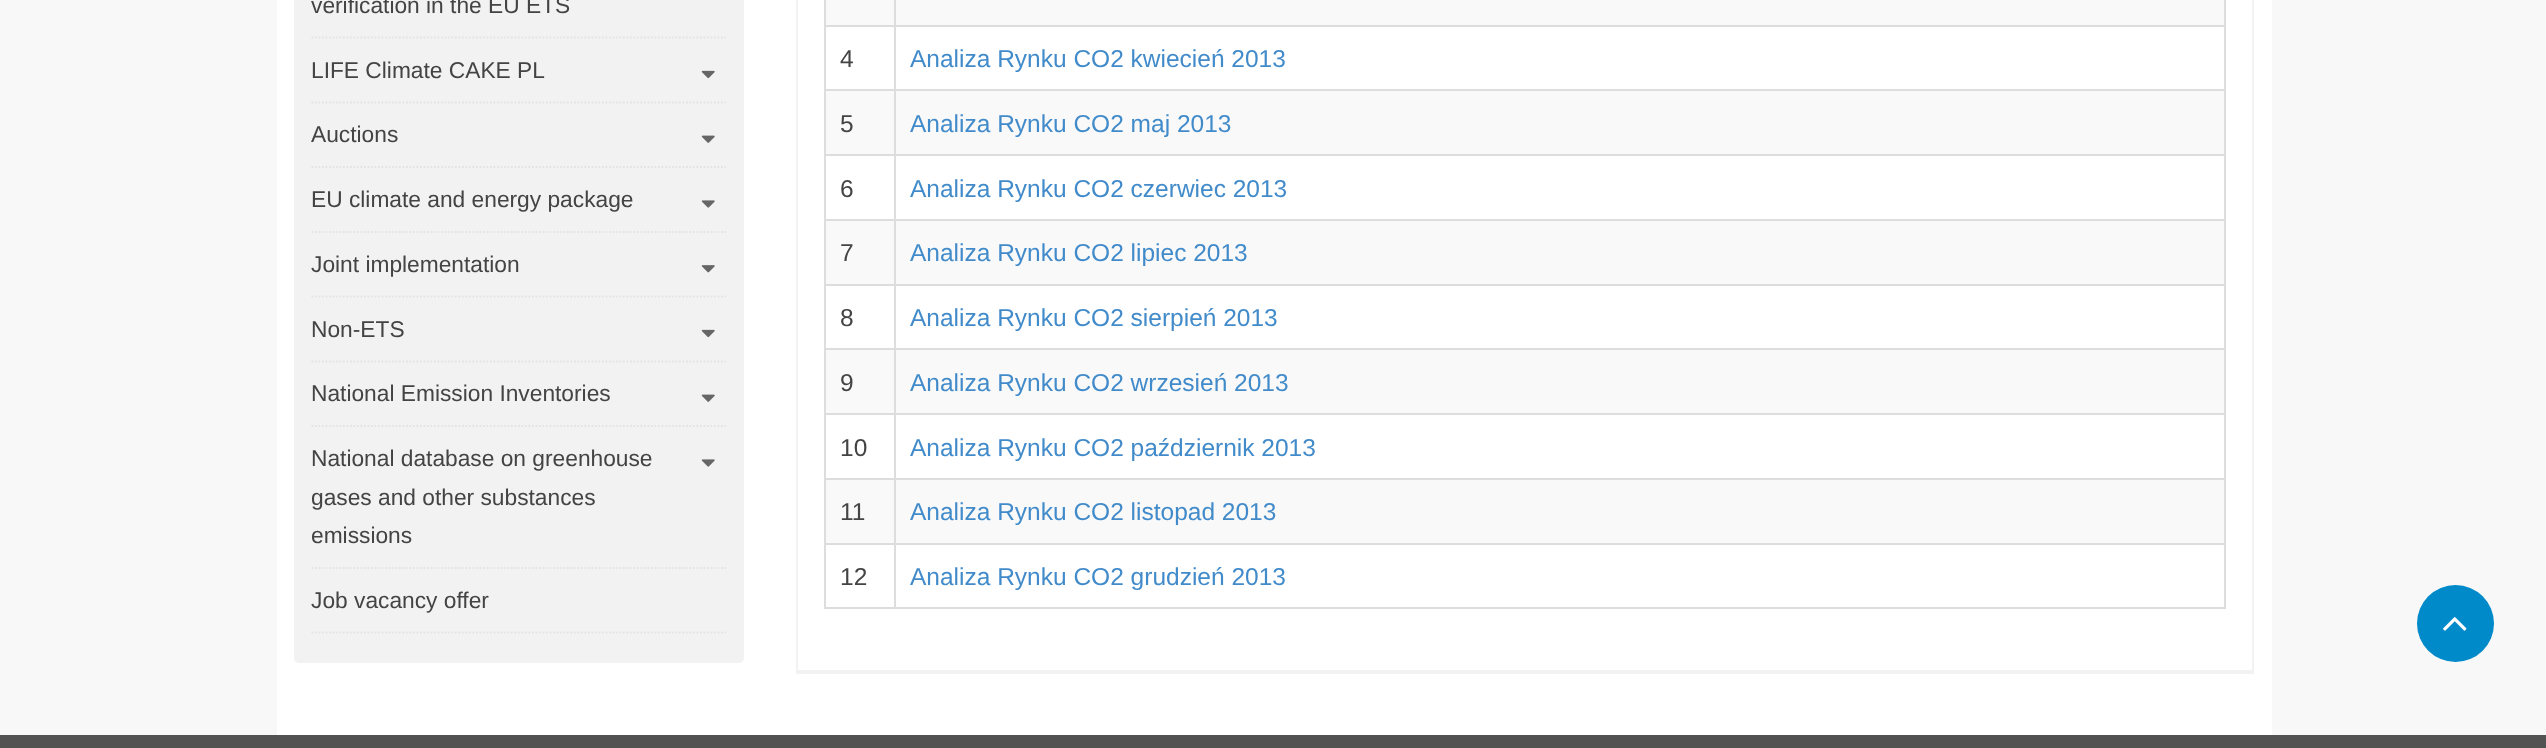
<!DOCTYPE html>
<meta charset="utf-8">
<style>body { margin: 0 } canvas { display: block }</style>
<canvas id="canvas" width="2546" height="748"></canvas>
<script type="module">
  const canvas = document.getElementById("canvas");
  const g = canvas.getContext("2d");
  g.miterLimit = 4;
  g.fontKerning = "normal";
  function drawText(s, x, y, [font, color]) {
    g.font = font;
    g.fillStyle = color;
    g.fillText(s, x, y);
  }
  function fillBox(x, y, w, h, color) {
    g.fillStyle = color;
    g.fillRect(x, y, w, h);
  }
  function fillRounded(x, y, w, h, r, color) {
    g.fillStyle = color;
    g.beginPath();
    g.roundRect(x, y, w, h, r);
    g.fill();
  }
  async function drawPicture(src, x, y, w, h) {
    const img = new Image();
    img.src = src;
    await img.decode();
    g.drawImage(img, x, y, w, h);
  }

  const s1 = ["22.75px Liberation Sans", "#444444"];
  const s2 = ["24.5px Liberation Sans", "#444444"];
  const s3 = ["24.5px Liberation Sans", "#428BCA"];

  fillBox(0, 0, 2546, 748, "#F8F8F8");
  fillBox(277, 0, 1995, 735, "#FFFFFF");
  fillRounded(294, -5, 450, 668, 5, "#F2F2F2");
  g.beginPath();
  g.moveTo(311.5, 37.5);
  g.lineTo(726, 37.5);
  g.strokeStyle = "#E3E3E3";
  g.lineWidth = 1.8;
  g.setLineDash([1.75, 1.75]);
  g.stroke();
  drawText("verification in the EU ETS", 311, 13, s1);
  g.beginPath();
  g.moveTo(311.5, 102.5);
  g.lineTo(726, 102.5);
  g.stroke();
  drawText("LIFE Climate CAKE PL", 311, 78, s1);
  await drawPicture("pic1.png", 701, 70, 14, 9);
  g.beginPath();
  g.moveTo(311.5, 167);
  g.lineTo(726, 167);
  g.stroke();
  drawText("Auctions", 311, 142, s1);
  await drawPicture("pic2.png", 701, 135, 14, 8);
  g.beginPath();
  g.moveTo(311.5, 232);
  g.lineTo(726, 232);
  g.stroke();
  drawText("EU climate and energy package", 311, 207, s1);
  await drawPicture("pic3.png", 701, 200, 14, 8);
  g.beginPath();
  g.moveTo(311.5, 296.5);
  g.lineTo(726, 296.5);
  g.stroke();
  drawText("Joint implementation", 311, 272, s1);
  await drawPicture("pic4.png", 701, 265, 14, 8);
  g.beginPath();
  g.moveTo(311.5, 361.5);
  g.lineTo(726, 361.5);
  g.stroke();
  drawText("Non-ETS", 311, 337, s1);
  await drawPicture("pic1.png", 701, 329, 14, 9);
  g.beginPath();
  g.moveTo(311.5, 426);
  g.lineTo(726, 426);
  g.stroke();
  drawText("National Emission Inventories", 311, 401, s1);
  await drawPicture("pic2.png", 701, 394, 14, 8);
  g.beginPath();
  g.moveTo(311.5, 568);
  g.lineTo(726, 568);
  g.stroke();
  drawText("National database on greenhouse", 311, 466, s1);
  drawText("gases and other substances", 311, 505, s1);
  drawText("emissions", 311, 543, s1);
  await drawPicture("pic3.png", 701, 459, 14, 8);
  g.beginPath();
  g.moveTo(311.5, 632.5);
  g.lineTo(726, 632.5);
  g.stroke();
  drawText("Job vacancy offer", 311, 608, s1);
  fillBox(2252, 0, 2, 674, "#F2F2F2");
  fillBox(796, 670, 1458, 4, "#F2F2F2");
  fillBox(796, 0, 2, 674, "#F2F2F2");
  fillBox(2224, 0, 2, 609, "#DDDDDD");
  fillBox(824, 607, 1402, 2, "#DDDDDD");
  fillBox(824, 0, 2, 609, "#DDDDDD");
  fillBox(826, 0, 68, 25, "#F9F9F9");
  fillBox(896, 0, 1328, 25, "#F9F9F9");
  fillBox(894, 25, 1332, 2, "#DDDDDD");
  fillBox(894, 89, 1332, 2, "#DDDDDD");
  fillBox(894, 154, 1332, 2, "#DDDDDD");
  fillBox(894, 219, 1332, 2, "#DDDDDD");
  fillBox(894, 284, 1332, 2, "#DDDDDD");
  fillBox(894, 348, 1332, 2, "#DDDDDD");
  fillBox(894, 413, 1332, 2, "#DDDDDD");
  fillBox(894, 478, 1332, 2, "#DDDDDD");
  fillBox(894, 543, 1332, 2, "#DDDDDD");
  fillBox(894, 543, 2, 66, "#DDDDDD");
  fillBox(824, 543, 72, 2, "#DDDDDD");
  fillBox(894, 478, 2, 66, "#DDDDDD");
  fillBox(824, 478, 72, 2, "#DDDDDD");
  fillBox(894, 413, 2, 67, "#DDDDDD");
  fillBox(824, 413, 72, 2, "#DDDDDD");
  fillBox(894, 348, 2, 67, "#DDDDDD");
  fillBox(824, 348, 72, 2, "#DDDDDD");
  fillBox(894, 284, 2, 66, "#DDDDDD");
  fillBox(824, 284, 72, 2, "#DDDDDD");
  fillBox(894, 219, 2, 66, "#DDDDDD");
  fillBox(824, 219, 72, 2, "#DDDDDD");
  fillBox(894, 154, 2, 67, "#DDDDDD");
  fillBox(824, 154, 72, 2, "#DDDDDD");
  fillBox(894, 89, 2, 67, "#DDDDDD");
  fillBox(824, 89, 72, 2, "#DDDDDD");
  fillBox(894, 25, 2, 66, "#DDDDDD");
  fillBox(824, 25, 72, 2, "#DDDDDD");
  fillBox(894, 0, 2, 26, "#DDDDDD");
  drawText("4", 840, 67, s2);
  drawText("Analiza Rynku CO2 kwiecień 2013", 910, 67, s3);
  fillBox(826, 91, 68, 63, "#F9F9F9");
  drawText("5", 840, 132, s2);
  fillBox(896, 91, 1328, 63, "#F9F9F9");
  drawText("Analiza Rynku CO2 maj 2013", 910, 132, s3);
  drawText("6", 840, 197, s2);
  drawText("Analiza Rynku CO2 czerwiec 2013", 910, 197, s3);
  fillBox(826, 221, 68, 63, "#F9F9F9");
  drawText("7", 840, 261, s2);
  fillBox(896, 221, 1328, 63, "#F9F9F9");
  drawText("Analiza Rynku CO2 lipiec 2013", 910, 261, s3);
  drawText("8", 840, 326, s2);
  drawText("Analiza Rynku CO2 sierpień 2013", 910, 326, s3);
  fillBox(826, 350, 68, 63, "#F9F9F9");
  drawText("9", 840, 391, s2);
  fillBox(896, 350, 1328, 63, "#F9F9F9");
  drawText("Analiza Rynku CO2 wrzesień 2013", 910, 391, s3);
  drawText("10", 840, 456, s2);
  drawText("Analiza Rynku CO2 październik 2013", 910, 456, s3);
  fillBox(826, 480, 68, 63, "#F9F9F9");
  drawText("11", 840, 520, s2);
  fillBox(896, 480, 1328, 63, "#F9F9F9");
  drawText("Analiza Rynku CO2 listopad 2013", 910, 520, s3);
  drawText("12", 840, 585, s2);
  drawText("Analiza Rynku CO2 grudzień 2013", 910, 585, s3);
  g.fillStyle = "#008AC9";
  g.beginPath();
  g.arc(2455.5, 623.5, 38.5, 0, Math.PI * 2);
  g.fill();
  await drawPicture("pic5.png", 2443, 617, 24, 14);
  fillBox(0, 735, 2546, 13, "#525252");
</script>
